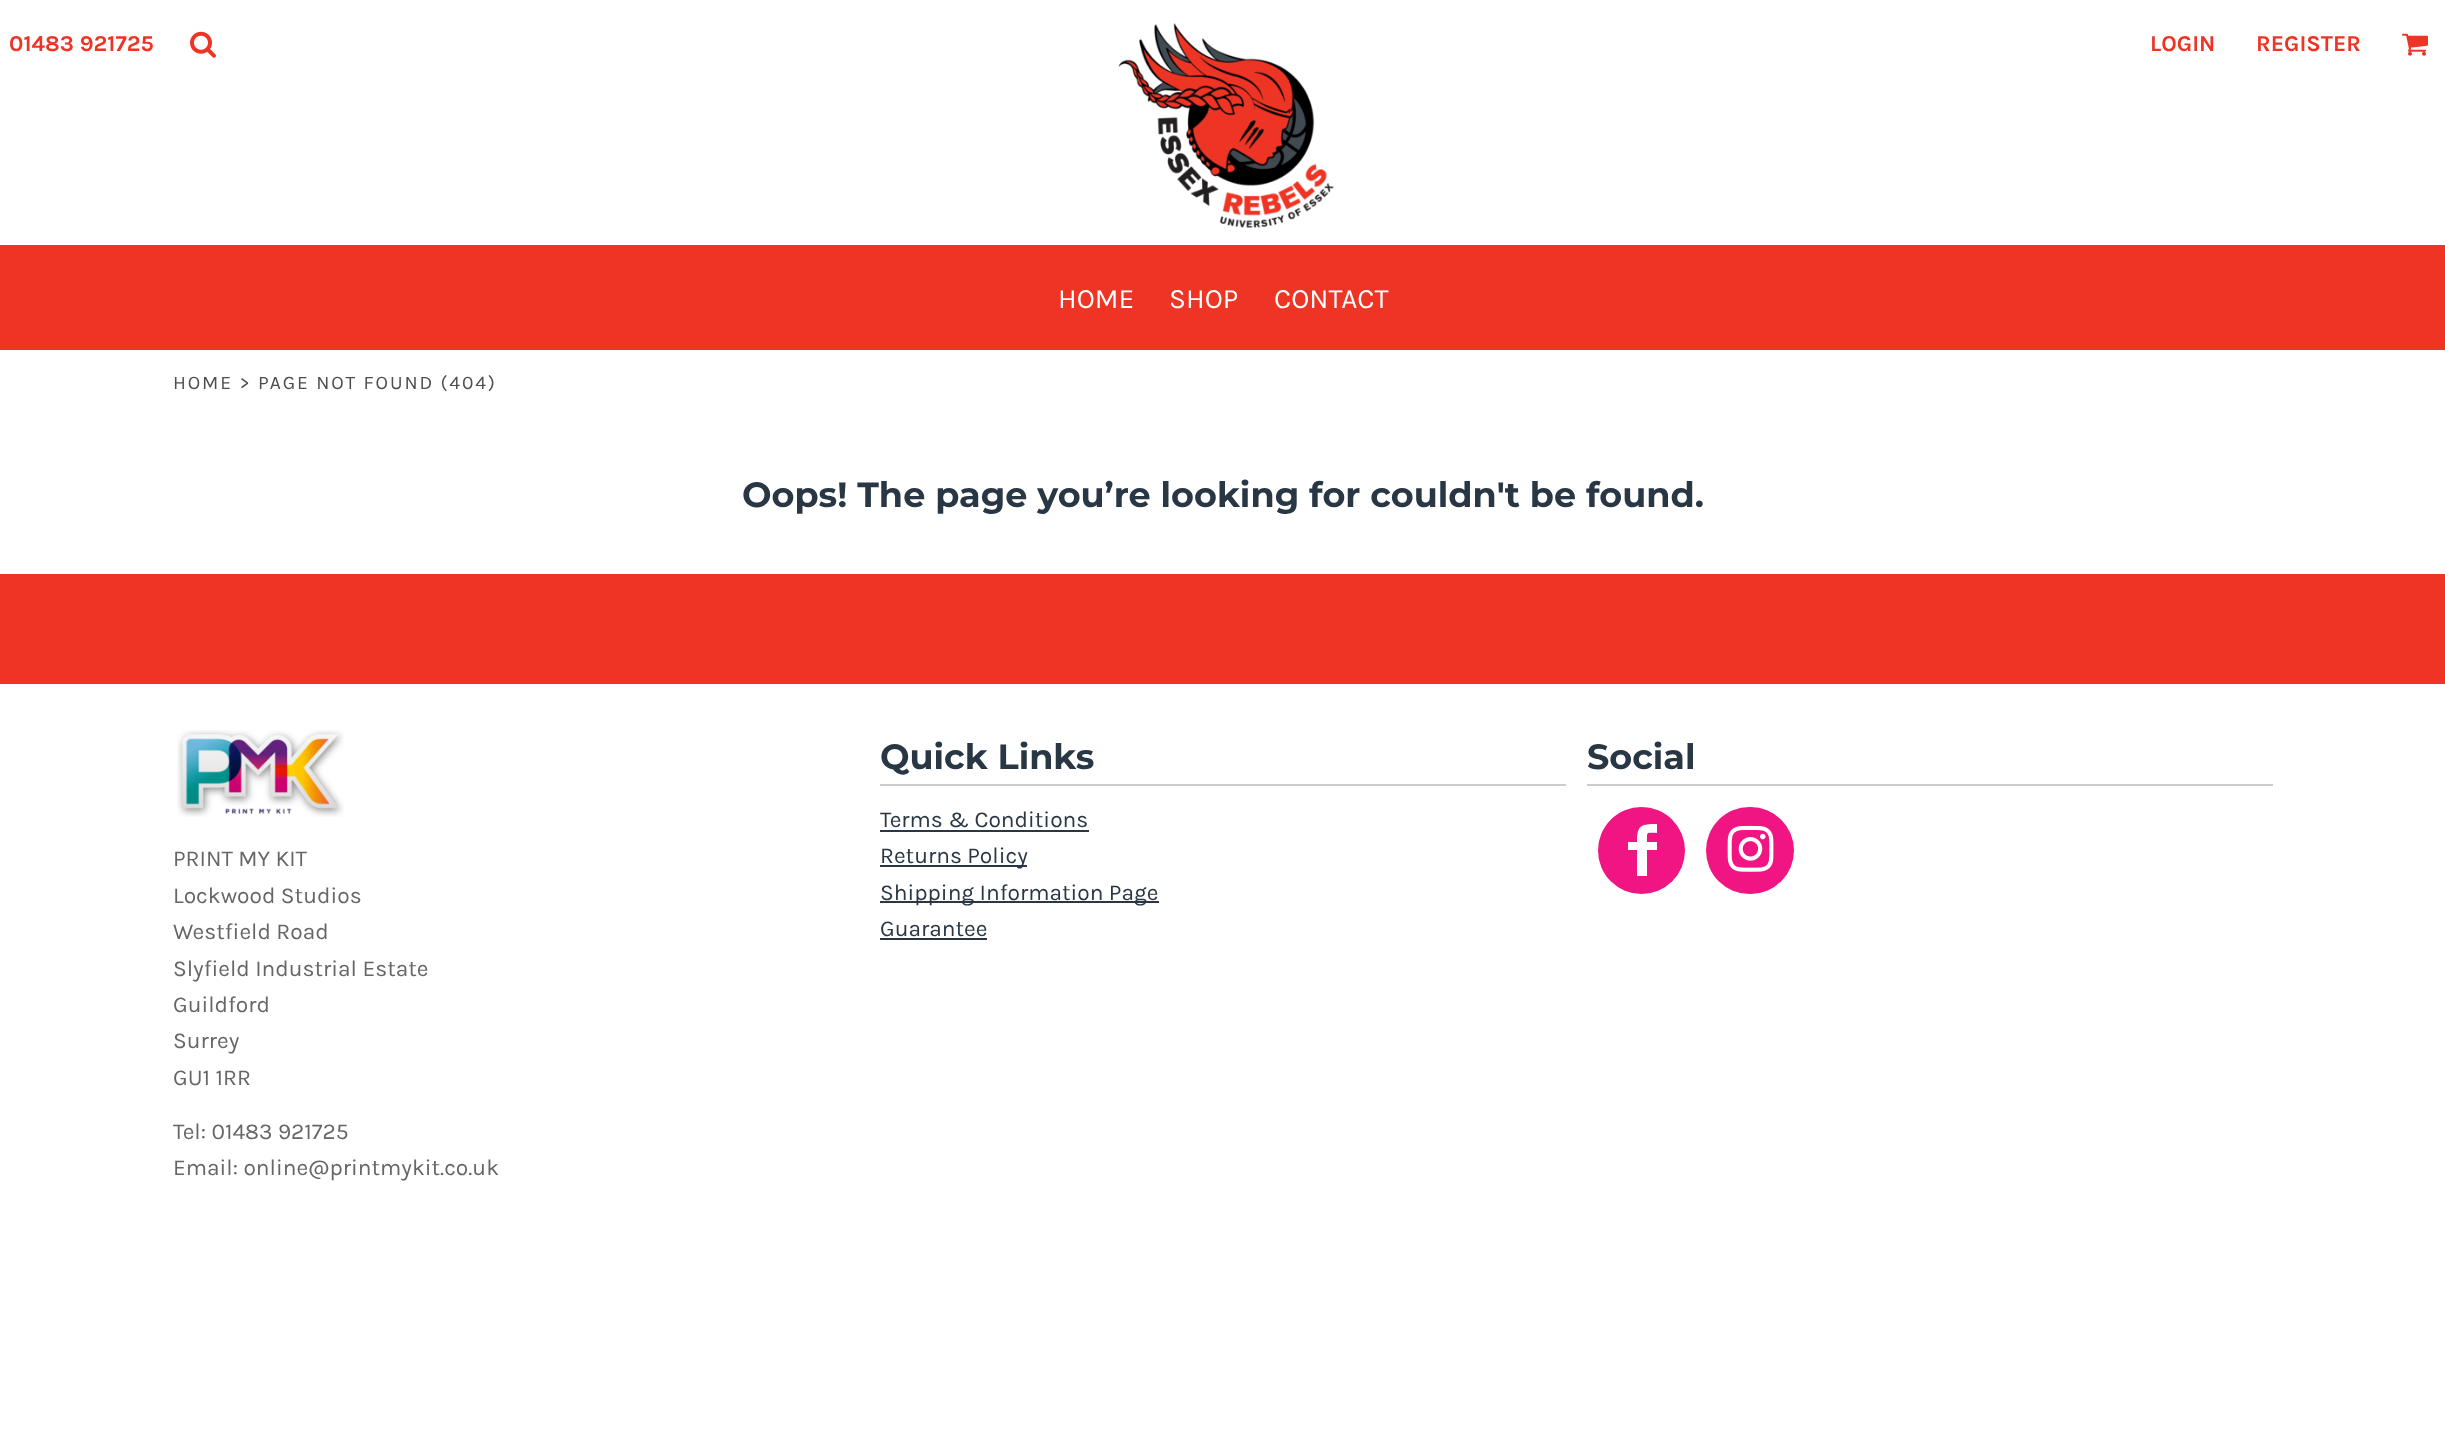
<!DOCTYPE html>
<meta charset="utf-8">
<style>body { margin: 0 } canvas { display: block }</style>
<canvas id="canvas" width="2445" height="1454"></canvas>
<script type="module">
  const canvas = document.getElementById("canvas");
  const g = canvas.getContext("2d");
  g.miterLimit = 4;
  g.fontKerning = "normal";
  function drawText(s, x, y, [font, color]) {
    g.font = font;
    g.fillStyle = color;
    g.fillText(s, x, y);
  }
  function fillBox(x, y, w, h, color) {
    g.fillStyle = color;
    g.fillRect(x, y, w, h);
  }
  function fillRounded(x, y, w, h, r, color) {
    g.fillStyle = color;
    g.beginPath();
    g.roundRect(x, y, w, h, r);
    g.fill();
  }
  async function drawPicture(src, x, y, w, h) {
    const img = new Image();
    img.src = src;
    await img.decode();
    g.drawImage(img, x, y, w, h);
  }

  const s1 = ["bold 22.75px Karla", "#EE3424"];
  const s2 = ["28px Karla", "#FFFFFF"];
  const s3 = ["19.25px Karla", "#4D4D4D"];
  const s4 = ["bold 35px Montserrat", "#293745"];
  const s5 = ["22.75px Karla", "#293745"];
  const s6 = ["22.75px Karla", "#666666"];

  fillBox(0, 0, 2445, 1454, "#FFFFFF");
  drawText("01483 921725", 9, 51, s1);
  await drawPicture("pic1.png", 190, 31, 26, 27);
  await drawPicture("pic2.png", 1118, 23, 216, 205);
  drawText("LOGIN", 2150, 51, s1);
  drawText("REGISTER", 2256, 51, s1);
  await drawPicture("pic3.png", 2402, 33, 26, 23);
  fillBox(0, 245, 2445, 105, "#EE3424");
  drawText("HOME", 1058, 308, s2);
  drawText("SHOP", 1169, 308, s2);
  drawText("CONTACT", 1274, 308, s2);
  g.letterSpacing = "1.9px";
  drawText("HOME > PAGE NOT FOUND (404)", 173, 389, s3);
  g.letterSpacing = "0px";
  drawText("Oops! The page you’re looking for couldn't be found.", 742, 507, s4);
  fillBox(0, 574, 2445, 110, "#EE3424");
  fillBox(880, 784, 686, 2, "#CCCCCC");
  drawText("Quick Links", 880, 769, s4);
  drawText("Terms & Conditions", 880, 827, s5);
  fillBox(880, 830, 209, 2, "#293745");
  fillBox(880, 865, 147, 2, "#293745");
  drawText("Returns Policy", 880, 863, s5);
  fillBox(880, 901, 279, 2, "#293745");
  drawText("Shipping Information Page", 880, 900, s5);
  drawText("Guarantee", 880, 936, s5);
  fillBox(880, 938, 107, 2, "#293745");
  fillBox(1587, 784, 686, 2, "#CCCCCC");
  drawText("Social", 1587, 769, s4);
  g.fillStyle = "#F11583";
  g.beginPath();
  g.arc(1641.5, 850.5, 43.5, 0, Math.PI * 2);
  g.fill();
  g.fillStyle = "#FFFFFF";
  g.beginPath();
  g.moveTo(1657, 833);
  g.bezierCurveTo(1646, 833, 1647, 831, 1647, 842);
  g.lineTo(1657, 842);
  g.lineTo(1657, 850);
  g.lineTo(1647, 850);
  g.lineTo(1647, 876);
  g.lineTo(1637, 876);
  g.lineTo(1637, 850);
  g.lineTo(1628, 850);
  g.lineTo(1628, 842);
  g.lineTo(1637, 842);
  g.bezierCurveTo(1637, 825, 1641, 824, 1657, 824);
  g.closePath();
  g.fill();
  fillRounded(1706, 807, 88, 87, 43.5, "#F11583");
  await drawPicture("pic4.png", 1727, 825, 47, 47);
  await drawPicture("pic5.png", 177, 730, 167, 87);
  drawText("PRINT MY KIT", 173, 866, s6);
  drawText("Lockwood Studios", 173, 903, s6);
  drawText("Westfield Road", 173, 939, s6);
  drawText("Slyfield Industrial Estate", 173, 976, s6);
  drawText("Guildford", 173, 1012, s6);
  drawText("Surrey", 173, 1048, s6);
  drawText("GU1 1RR", 173, 1085, s6);
  drawText("Tel: 01483 921725", 173, 1139, s6);
  drawText("Email: online@printmykit.co.uk", 173, 1175, s6);
</script>
